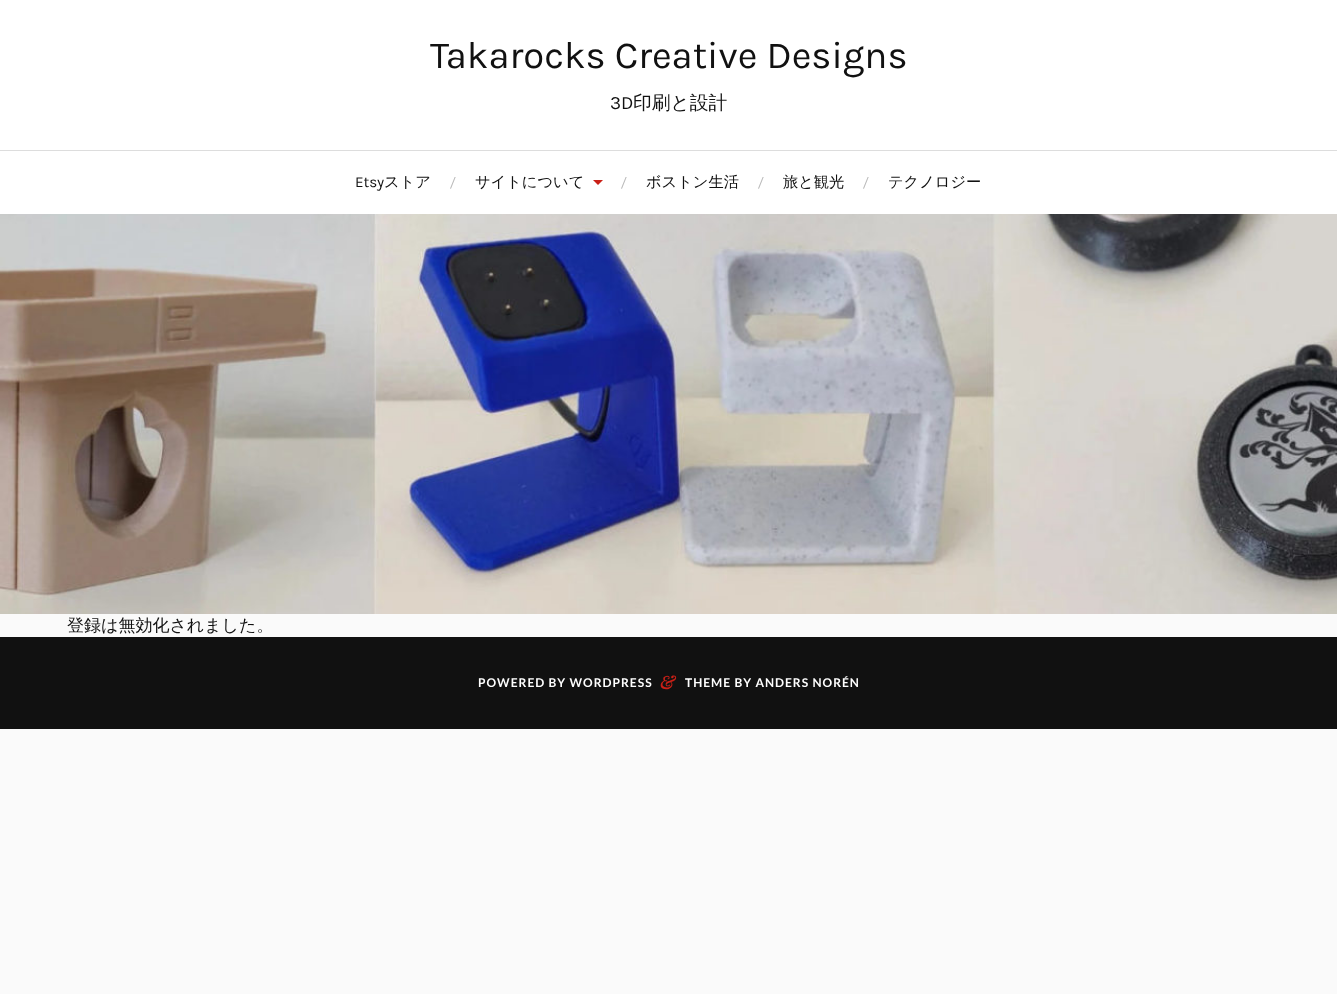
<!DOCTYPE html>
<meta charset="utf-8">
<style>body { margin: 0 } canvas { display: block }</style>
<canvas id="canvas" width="1337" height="994"></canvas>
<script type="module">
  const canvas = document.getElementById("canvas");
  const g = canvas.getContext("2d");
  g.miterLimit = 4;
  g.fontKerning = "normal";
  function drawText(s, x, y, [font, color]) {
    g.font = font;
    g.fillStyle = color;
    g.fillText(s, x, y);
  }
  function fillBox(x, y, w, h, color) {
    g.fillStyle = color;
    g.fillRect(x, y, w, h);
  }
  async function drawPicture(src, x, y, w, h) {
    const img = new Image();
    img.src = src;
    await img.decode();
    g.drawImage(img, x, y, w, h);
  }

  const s1 = ["38.25px Karla", "#111111"];
  const s2 = ["18.75px Karla", "#111111"];
  const s3 = ["500 18.75px WenQuanYi Zen Hei", "#111111"];
  const s4 = ["15.25px Karla", "#111111"];
  const s5 = ["500 15.25px WenQuanYi Zen Hei", "#111111"];
  const s6 = ["15px Lato", "#BBBBBB"];
  const s7 = ["500 17px WenQuanYi Zen Hei", "#111111"];
  const s8 = ["bold 12px Lato", "#FFFFFF"];
  const s9 = ["italic bold 18px Playfair Display", "#CA2017"];

  fillBox(0, 0, 1337, 994, "#FAFAFA");
  fillBox(0, 0, 1337, 150, "#FFFFFF");
  drawText("Takarocks Creative Designs", 430, 68, s1);
  drawText("3D", 610, 109, s2);
  drawText("印刷と設計", 633, 109, s3);
  fillBox(0, 151, 1337, 63, "#FFFFFF");
  fillBox(0, 150, 1337, 1, "#DDDDDD");
  drawText("Etsy", 355, 187, s4);
  drawText("ストア", 384, 187, s5);
  drawText("/", 450, 188, s6);
  drawText("サイトについて", 475, 187, s5);
  g.fillStyle = "#CA2017";
  g.beginPath();
  g.moveTo(593, 180);
  g.lineTo(603, 180);
  g.lineTo(598, 185);
  g.closePath();
  g.fill();
  drawText("/", 621, 188, s6);
  drawText("ボストン生活", 646, 187, s5);
  drawText("/", 758, 188, s6);
  drawText("旅と観光", 783, 187, s5);
  drawText("/", 863, 188, s6);
  drawText("テクノロジー", 888, 187, s5);
  await drawPicture("pic1.png", 0, 214, 1337, 400);
  drawText("登録は無効化されました。", 67, 631, s7);
  fillBox(0, 637, 1337, 92, "#111111");
  g.letterSpacing = "1px";
  drawText("POWERED BY WORDPRESS", 478, 687, s8);
  drawText("&", 660, 689, s9);
  drawText("THEME BY ANDERS NORÉN", 685, 687, s8);
</script>
